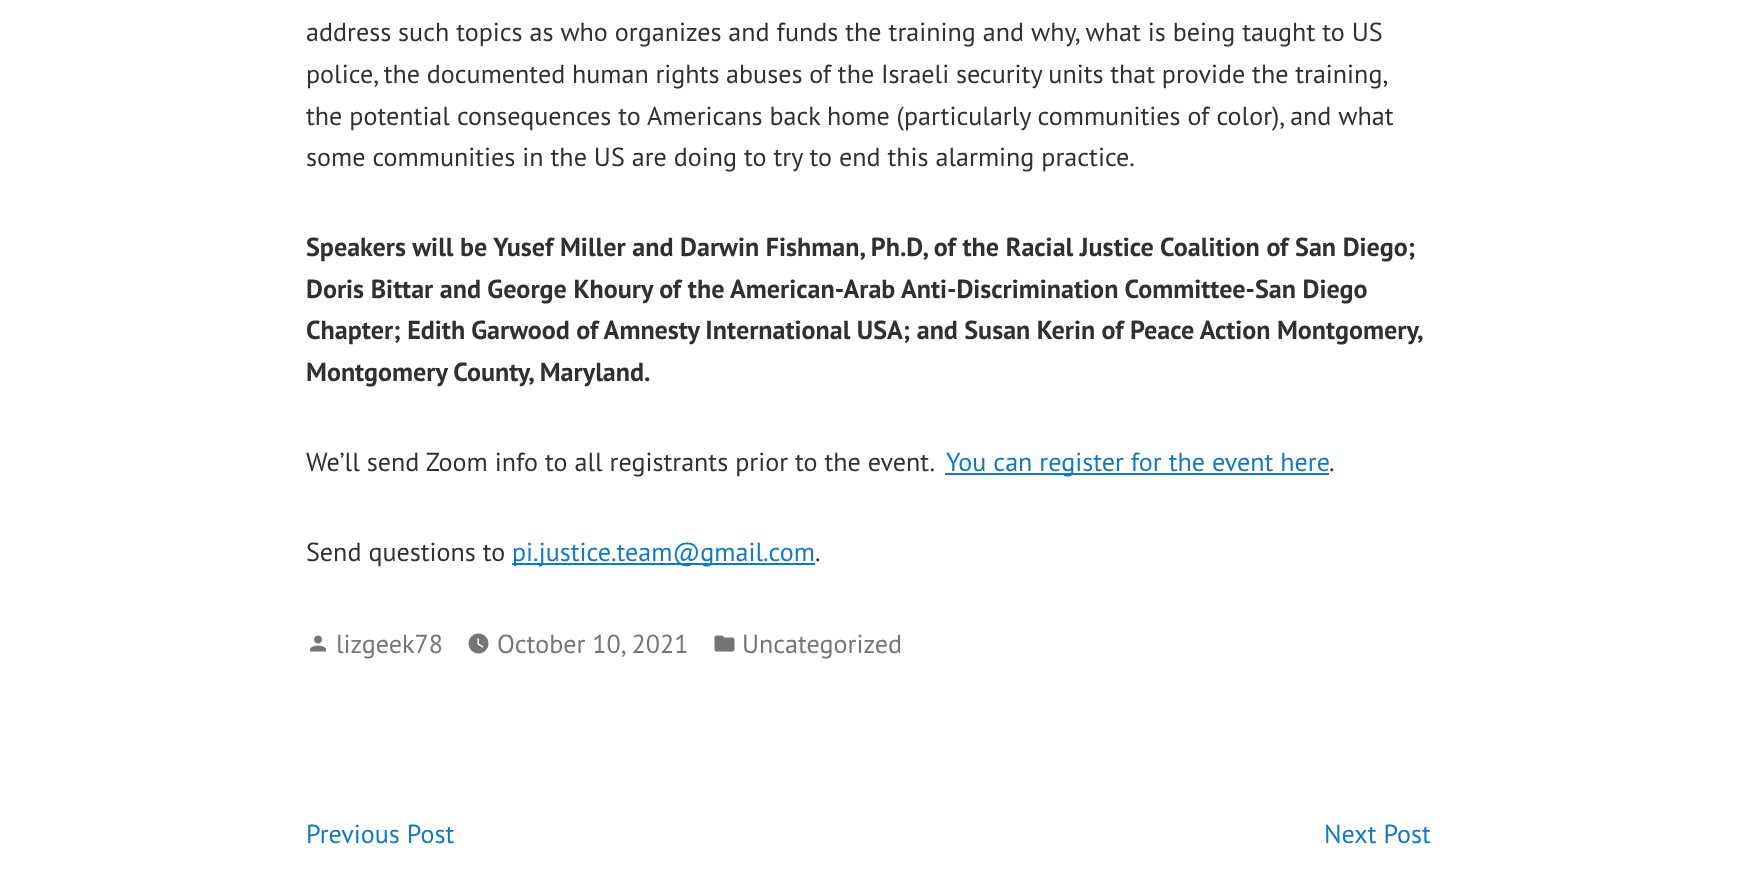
<!DOCTYPE html>
<meta charset="utf-8">
<style>body { margin: 0 } canvas { display: block }</style>
<canvas id="canvas" width="1737" height="884"></canvas>
<script type="module">
  const canvas = document.getElementById("canvas");
  const g = canvas.getContext("2d");
  g.miterLimit = 4;
  g.fontKerning = "normal";
  function drawText(s, x, y, [font, color]) {
    g.font = font;
    g.fillStyle = color;
    g.fillText(s, x, y);
  }
  function fillBox(x, y, w, h, color) {
    g.fillStyle = color;
    g.fillRect(x, y, w, h);
  }
  async function drawPicture(src, x, y, w, h) {
    const img = new Image();
    img.src = src;
    await img.decode();
    g.drawImage(img, x, y, w, h);
  }

  const s1 = ["26.1px PT Sans", "#303030"];
  const s2 = ["bold 26.1px PT Sans", "#303030"];
  const s3 = ["26.1px PT Sans", "#1279BE"];
  const s4 = ["26.1px PT Sans", "#757575"];

  fillBox(0, 0, 1737, 884, "#FFFFFF");
  drawText("address such topics as who organizes and funds the training and why, what is being taught to US", 306, 41, s1);
  g.wordSpacing = "-0.25px";
  drawText("police, the documented human rights abuses of the Israeli security units that provide the training,", 306, 83, s1);
  g.wordSpacing = "0px";
  drawText("the potential consequences to Americans back home (particularly communities of color), and what", 306, 125, s1);
  drawText("some communities in the US are doing to try to end this alarming practice.", 306, 166, s1);
  drawText("Speakers will be Yusef Miller and Darwin Fishman, Ph.D, of the Racial Justice Coalition of San Diego;", 306, 256, s2);
  drawText("Doris Bittar and George Khoury of the American-Arab Anti-Discrimination Committee-San Diego", 306, 298, s2);
  g.wordSpacing = "-0.25px";
  drawText("Chapter; Edith Garwood of Amnesty International USA; and Susan Kerin of Peace Action Montgomery,", 306, 339, s2);
  g.wordSpacing = "0px";
  drawText("Montgomery County, Maryland.", 306, 381, s2);
  drawText("We’ll send Zoom info to all registrants prior to the event.", 306, 471, s1);
  fillBox(945, 473, 384, 2, "#1279BE");
  drawText("You can register for the event here", 946, 471, s3);
  drawText(".", 1329, 471, s1);
  drawText("Send questions to", 306, 561, s1);
  fillBox(512, 563, 303, 2, "#1279BE");
  drawText("pi.justice.team@gmail.com", 512, 561, s3);
  drawText(".", 815, 561, s1);
  await drawPicture("pic1.png", 310, 635, 16, 17);
  drawText("lizgeek78", 336, 653, s4);
  await drawPicture("pic2.png", 468, 633, 21, 21);
  drawText("October 10, 2021", 497, 653, s4);
  await drawPicture("pic3.png", 714, 635, 21, 17);
  drawText("Uncategorized", 742, 653, s4);
  drawText("Previous Post", 306, 843, s3);
  drawText("Next Post", 1324, 843, s3);
</script>
